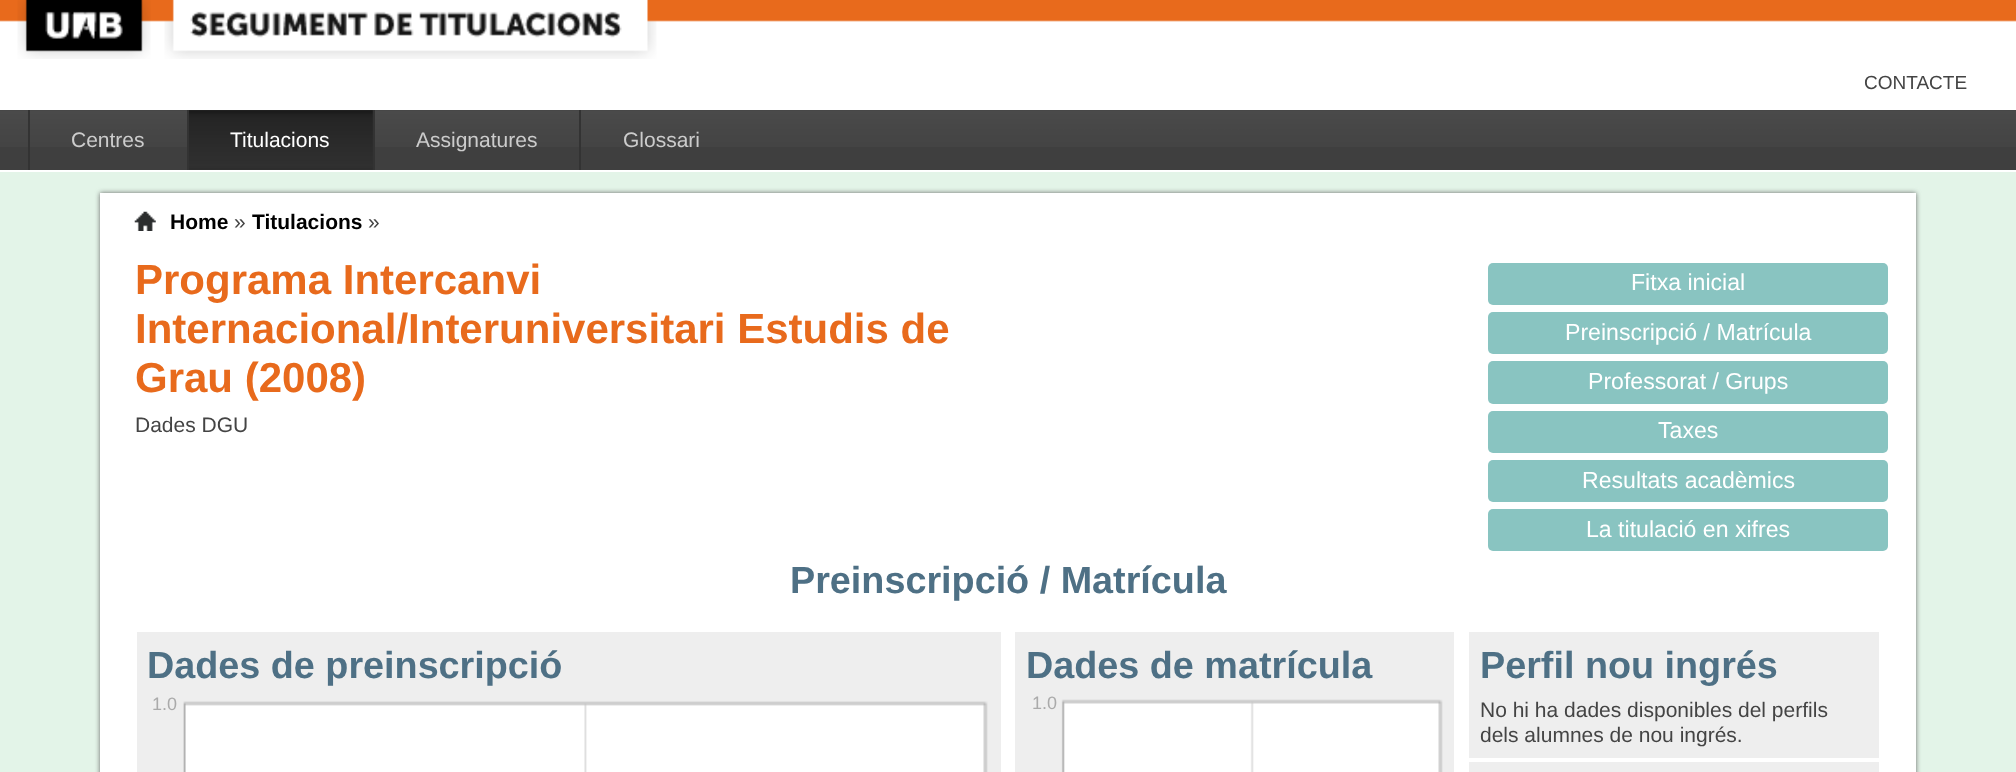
<!DOCTYPE html>
<meta charset="utf-8">
<style>body { margin: 0 } canvas { display: block }</style>
<canvas id="canvas" width="2016" height="772"></canvas>
<script type="module">
  const canvas = document.getElementById("canvas");
  const g = canvas.getContext("2d");
  g.miterLimit = 4;
  g.fontKerning = "normal";
  function drawText(s, x, y, [font, color]) {
    g.font = font;
    g.fillStyle = color;
    g.fillText(s, x, y);
  }
  function fillBox(x, y, w, h, color) {
    g.fillStyle = color;
    g.fillRect(x, y, w, h);
  }
  function fillRounded(x, y, w, h, r, color) {
    g.fillStyle = color;
    g.beginPath();
    g.roundRect(x, y, w, h, r);
    g.fill();
  }
  async function drawPicture(src, x, y, w, h) {
    const img = new Image();
    img.src = src;
    await img.decode();
    g.drawImage(img, x, y, w, h);
  }

  const s1 = ["19px Liberation Sans", "#444444"];
  const s2 = ["21px Liberation Sans", "#CCCCCC"];
  const s3 = ["21px Liberation Sans", "#FFFFFF"];
  const s4 = ["bold 21px Liberation Sans", "#000000"];
  const s5 = ["21px Liberation Sans", "#444444"];
  const s6 = ["bold 42px Liberation Sans", "#E86A1C"];
  const s7 = ["23.1px Liberation Sans", "#FFFFFF"];
  const s8 = ["bold 37.75px Liberation Sans", "#4E7085"];
  const s9 = ["18px Liberation Sans", "#AAAAAA"];

  fillBox(0, 0, 2016, 772, "#FFFFFF");
  await drawPicture("pic1.png", 0, 0, 2016, 59);
  drawText("CONTACTE", 1864, 89, s1);
  fillBox(0, 110, 2016, 60, "#3F3F3F");
  await drawPicture("pic2.png", 0, 110, 2016, 37);
  fillBox(28, 110, 2, 60, "#333333");
  drawText("Centres", 71, 147, s2);
  fillBox(187, 110, 188, 60, "#333333");
  await drawPicture("pic3.png", 189, 110, 184, 60);
  drawText("Titulacions", 230, 147, s3);
  drawText("Assignatures", 416, 147, s2);
  fillBox(579, 110, 2, 60, "#333333");
  drawText("Glossari", 623, 147, s2);
  fillBox(0, 172, 2016, 600, "#E3F4E8");
  g.fillStyle = "#666666";
  g.filter = "blur(2.5px)";
  g.beginPath();
  g.rect(100, 193, 1816, 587);
  g.fill();
  g.filter = "none";
  fillBox(100, 193, 1816, 579, "#FFFFFF");
  await drawPicture("pic4.png", 134, 211, 22, 20);
  drawText("Home", 170, 229, s4);
  drawText("»", 234, 229, s5);
  drawText("Titulacions", 252, 229, s4);
  drawText("»", 368, 229, s5);
  drawText("Programa Intercanvi", 135, 294, s6);
  drawText("Internacional/Interuniversitari Estudis de", 135, 343, s6);
  drawText("Grau (2008)", 135, 392, s6);
  drawText("Dades DGU", 135, 432, s5);
  fillRounded(1488, 263, 400, 42, 5, "#89C4C1");
  drawText("Fitxa inicial", 1631, 290, s7);
  fillRounded(1488, 312, 400, 42, 5, "#89C4C1");
  drawText("Preinscripció / Matrícula", 1565, 340, s7);
  fillRounded(1488, 361, 400, 43, 5, "#89C4C1");
  drawText("Professorat / Grups", 1588, 389, s7);
  fillRounded(1488, 411, 400, 42, 5, "#89C4C1");
  drawText("Taxes", 1658, 438, s7);
  fillRounded(1488, 460, 400, 42, 5, "#89C4C1");
  drawText("Resultats acadèmics", 1582, 488, s7);
  fillRounded(1488, 509, 400, 42, 5, "#89C4C1");
  drawText("La titulació en xifres", 1586, 537, s7);
  drawText("Preinscripció / Matrícula", 790, 593, s8);
  fillBox(137, 632, 864, 140, "#EEEEEE");
  drawText("Dades de preinscripció", 147, 678, s8);
  drawText("1.0", 152, 710, s9);
  await drawPicture("pic5.png", 183, 701, 805, 71);
  fillBox(1015, 632, 439, 140, "#EEEEEE");
  drawText("Dades de matrícula", 1026, 678, s8);
  drawText("1.0", 1032, 709, s9);
  await drawPicture("pic6.png", 1061, 699, 382, 73);
  fillBox(1469, 632, 410, 126, "#EEEEEE");
  drawText("Perfil nou ingrés", 1480, 678, s8);
  drawText("No hi ha dades disponibles del perfils", 1480, 717, s5);
  drawText("dels alumnes de nou ingrés.", 1480, 742, s5);
  fillBox(1469, 762, 410, 10, "#EEEEEE");
</script>
